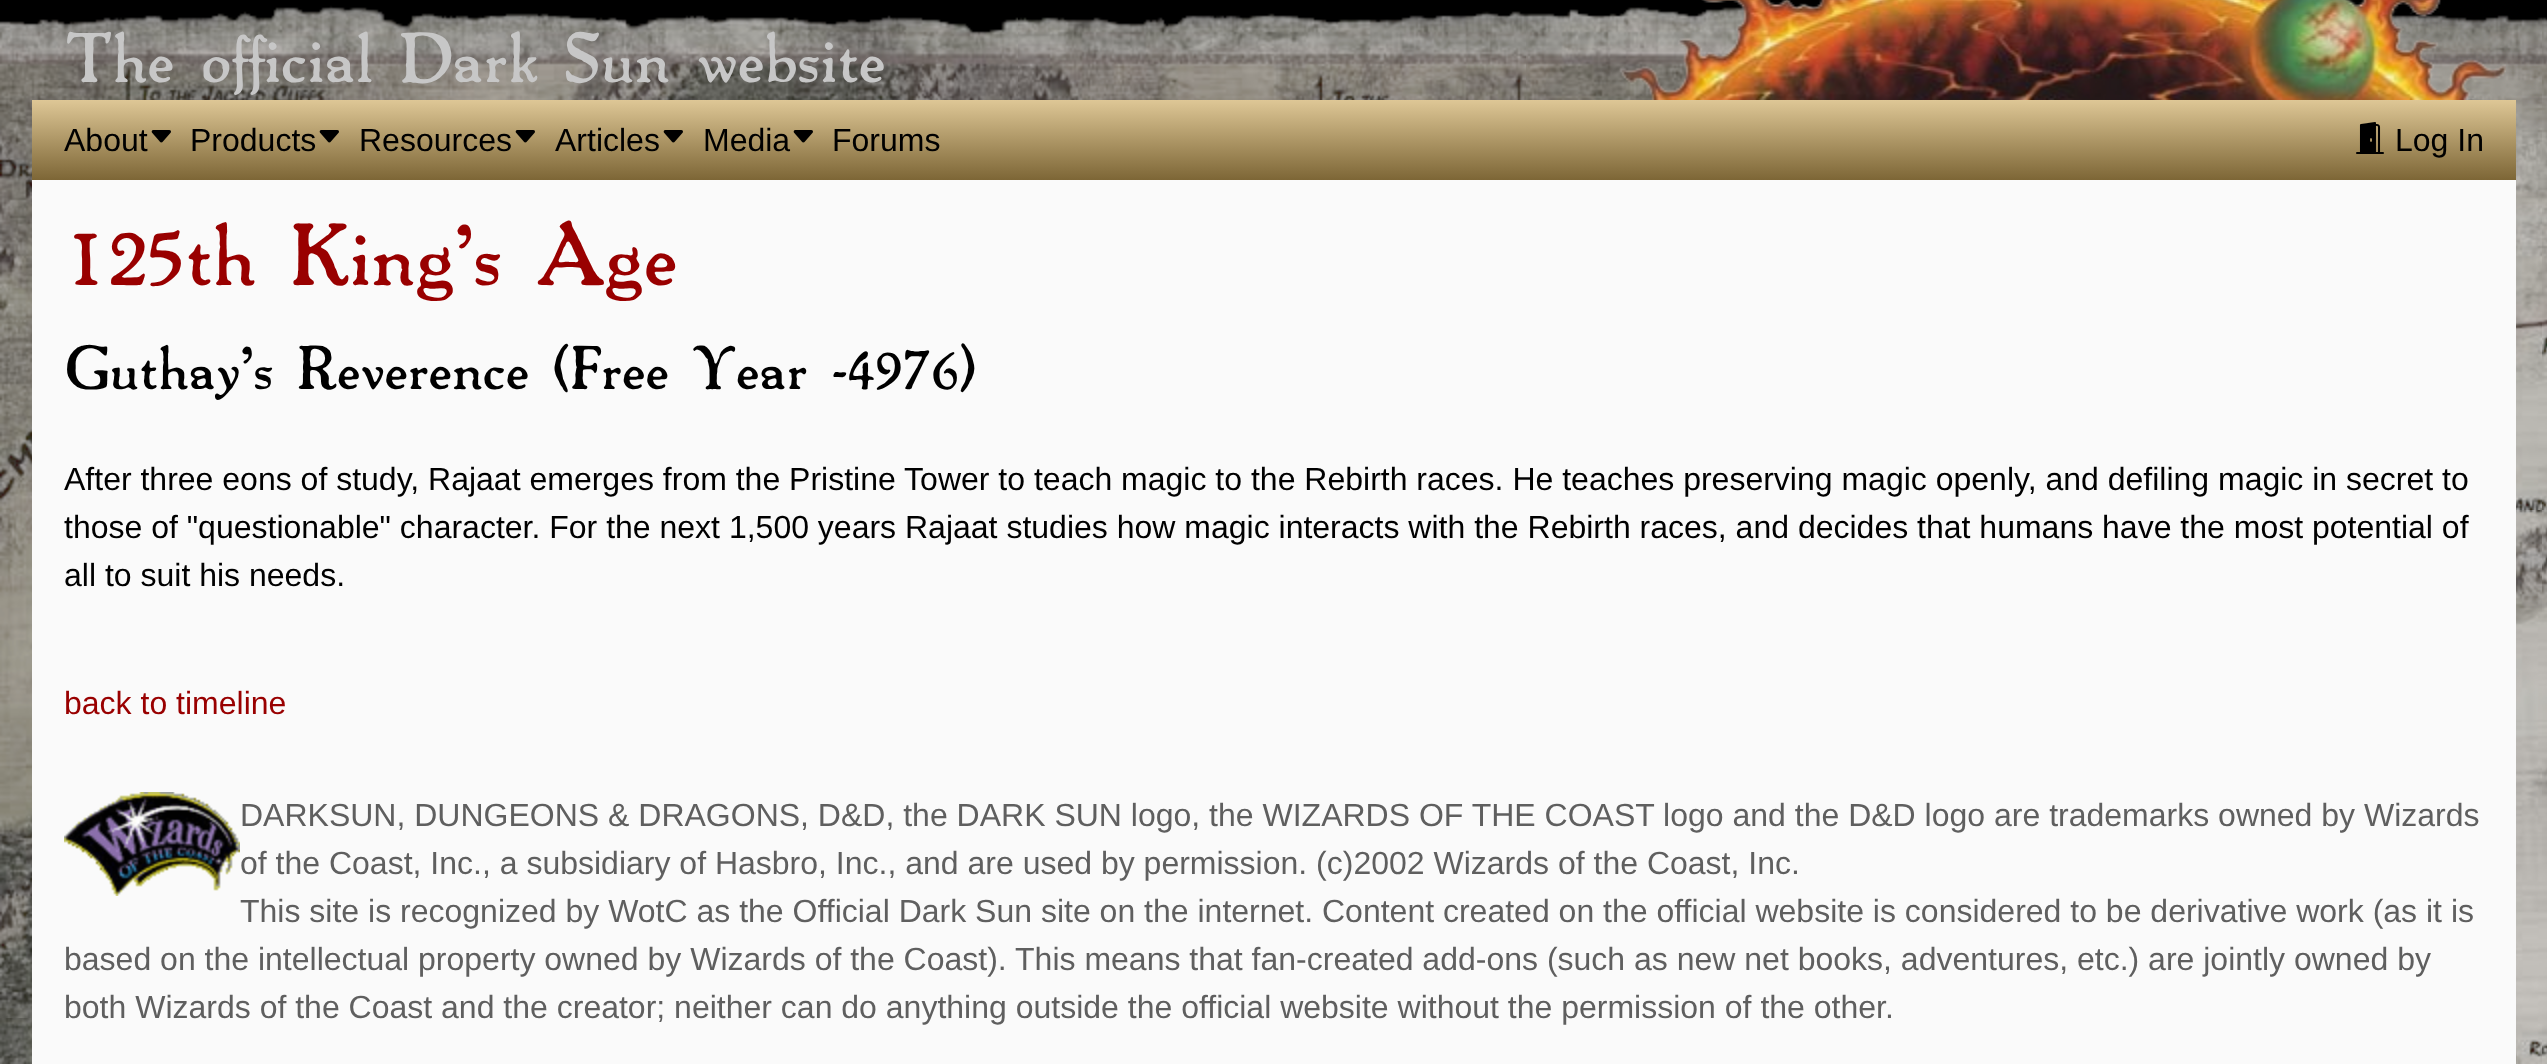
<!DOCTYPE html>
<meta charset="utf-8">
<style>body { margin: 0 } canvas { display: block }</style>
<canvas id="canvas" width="2547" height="1064"></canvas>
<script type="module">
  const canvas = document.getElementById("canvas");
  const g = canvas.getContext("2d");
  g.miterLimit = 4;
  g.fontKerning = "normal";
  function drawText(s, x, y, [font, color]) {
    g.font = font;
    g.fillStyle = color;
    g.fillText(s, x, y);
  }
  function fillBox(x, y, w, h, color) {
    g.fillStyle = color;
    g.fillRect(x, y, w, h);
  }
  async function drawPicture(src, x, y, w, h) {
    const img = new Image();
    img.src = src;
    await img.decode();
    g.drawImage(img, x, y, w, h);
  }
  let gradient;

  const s1 = ["bold 64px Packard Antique", "#C7C7C7"];
  const s2 = ["32px Liberation Sans", "#000000"];
  const s3 = ["bold 80px Packard Antique", "#990000"];
  const s4 = ["bold 56px Packard Antique", "#000000"];
  const s5 = ["32px Liberation Sans", "#990000"];
  const s6 = ["32px Liberation Sans", "#5F5F5F"];

  fillBox(0, 0, 2547, 1064, "#000000");
  await drawPicture("pic1.png", 0, 3, 2547, 1061);
  await drawPicture("pic2.png", 1619, 0, 887, 100);
  drawText("The official Dark Sun website", 64, 82, s1);
  gradient = g.createLinearGradient(1274, 100, 1274, 180);
  gradient.addColorStop(0, "#DEC796");
  gradient.addColorStop(1, "#7D6636");
  g.fillStyle = gradient;
  g.fillRect(32, 100, 2484, 80);
  drawText("About", 64, 151, s2);
  await drawPicture("pic3.png", 151, 130, 20, 13);
  drawText("Products", 190, 151, s2);
  await drawPicture("pic3.png", 319, 130, 20, 13);
  drawText("Resources", 359, 151, s2);
  await drawPicture("pic3.png", 515, 130, 20, 13);
  drawText("Articles", 555, 151, s2);
  await drawPicture("pic3.png", 663, 130, 20, 13);
  drawText("Media", 703, 151, s2);
  await drawPicture("pic3.png", 793, 130, 20, 13);
  drawText("Forums", 832, 151, s2);
  await drawPicture("pic4.png", 2356, 122, 28, 32);
  drawText("Log In", 2395, 151, s2);
  fillBox(32, 180, 2484, 884, "#FAFAFA");
  drawText("125th King's Age", 64, 285, s3);
  drawText("Guthay's Reverence (Free Year -4976)", 64, 389, s4);
  drawText("After three eons of study, Rajaat emerges from the Pristine Tower to teach magic to the Rebirth races. He teaches preserving magic openly, and defiling magic in secret to", 64, 490, s2);
  drawText("those of \"questionable\" character. For the next 1,500 years Rajaat studies how magic interacts with the Rebirth races, and decides that humans have the most potential of", 64, 538, s2);
  drawText("all to suit his needs.", 64, 586, s2);
  drawText("back to timeline", 64, 714, s5);
  await drawPicture("pic5.png", 64, 792, 176, 104);
  drawText("DARKSUN, DUNGEONS & DRAGONS, D&D, the DARK SUN logo, the WIZARDS OF THE COAST logo and the D&D logo are trademarks owned by Wizards", 240, 826, s6);
  drawText("of the Coast, Inc., a subsidiary of Hasbro, Inc., and are used by permission. (c)2002 Wizards of the Coast, Inc.", 240, 874, s6);
  drawText("This site is recognized by WotC as the Official Dark Sun site on the internet. Content created on the official website is considered to be derivative work (as it is", 240, 922, s6);
  drawText("based on the intellectual property owned by Wizards of the Coast). This means that fan-created add-ons (such as new net books, adventures, etc.) are jointly owned by", 64, 970, s6);
  drawText("both Wizards of the Coast and the creator; neither can do anything outside the official website without the permission of the other.", 64, 1018, s6);
</script>
